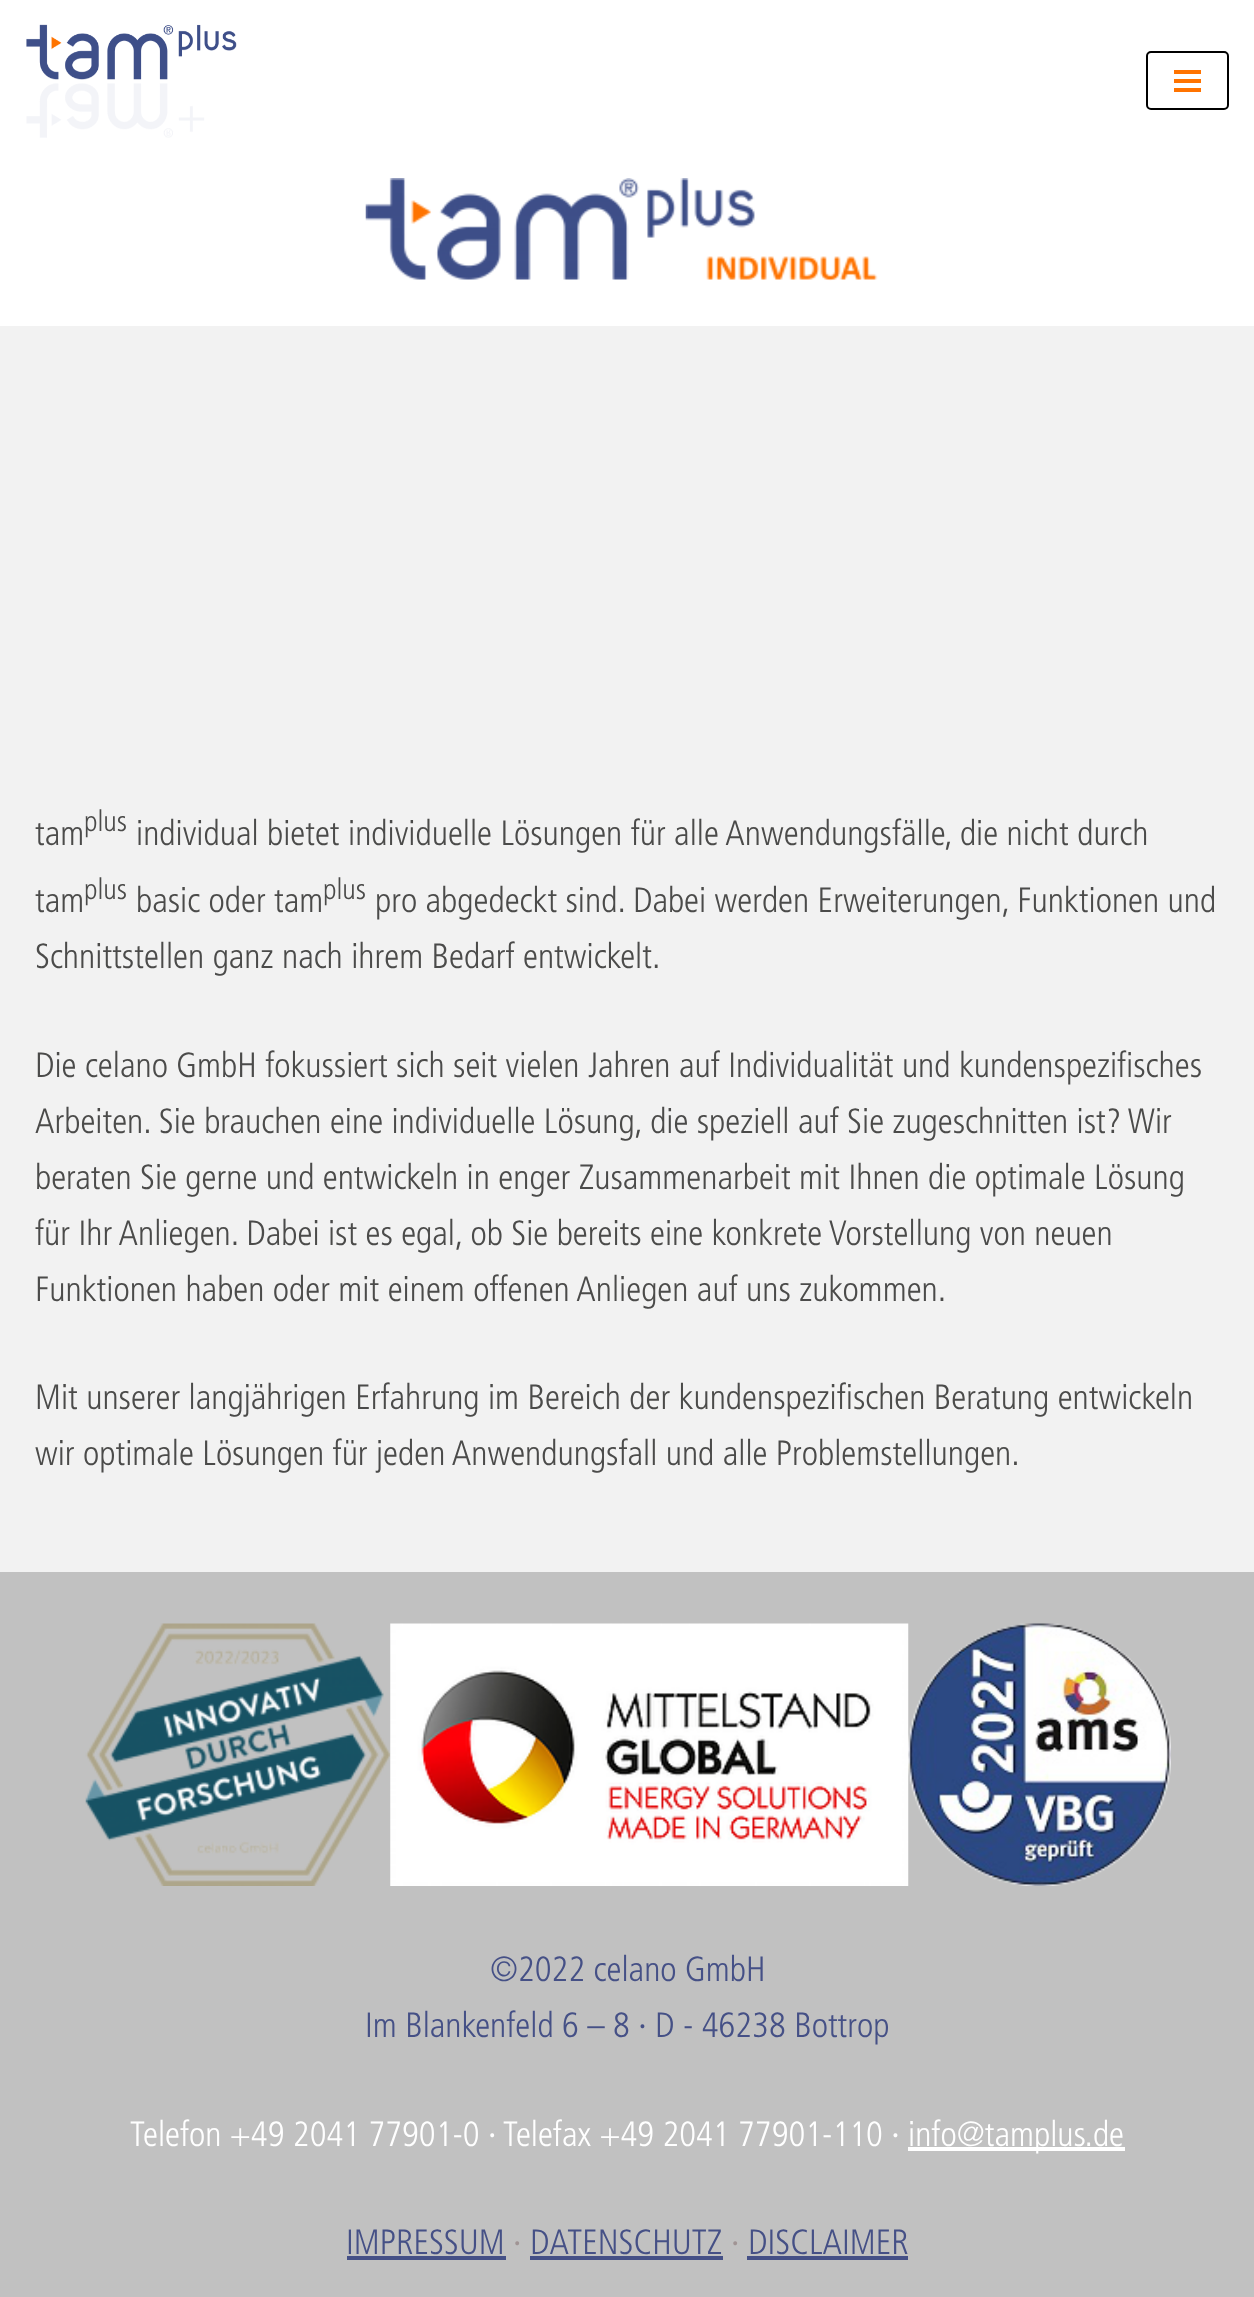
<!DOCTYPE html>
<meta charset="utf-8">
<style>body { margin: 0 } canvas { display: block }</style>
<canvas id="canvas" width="1254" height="2297"></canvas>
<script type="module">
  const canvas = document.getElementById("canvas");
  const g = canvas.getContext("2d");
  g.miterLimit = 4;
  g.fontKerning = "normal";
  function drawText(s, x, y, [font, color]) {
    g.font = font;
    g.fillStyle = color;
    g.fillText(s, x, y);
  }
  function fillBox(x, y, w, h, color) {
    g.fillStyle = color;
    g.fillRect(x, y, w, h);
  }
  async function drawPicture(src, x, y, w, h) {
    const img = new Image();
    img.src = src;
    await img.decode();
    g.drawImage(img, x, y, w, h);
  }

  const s1 = ["300 35px Frutiger", "#4B4B4A"];
  const s2 = ["300 29px Frutiger", "#4B4B4A"];
  const s3 = ["300 35px Frutiger", "#455086"];
  const s4 = ["300 35px Frutiger", "#FFFFFF"];
  const s5 = ["300 35px Frutiger", "#A09494"];

  fillBox(0, 0, 1254, 2297, "#FFFFFF");
  await drawPicture("pic1.png", 26, 24, 211, 114);
  g.beginPath();
  g.roundRect(1147, 52, 81, 57, 4);
  g.strokeStyle = "#000000";
  g.lineWidth = 2;
  g.stroke();
  fillBox(1174, 70, 27, 4, "#FF7300");
  fillBox(1174, 79, 27, 4, "#FF7300");
  fillBox(1174, 88, 27, 4, "#FF7300");
  await drawPicture("pic2.png", 365, 178, 513, 103);
  fillBox(0, 326, 1254, 1246, "#F2F2F2");
  drawText("tam", 35, 845, s1);
  drawText("plus", 84, 831, s2);
  drawText("individual bietet individuelle Lösungen für alle Anwendungsfälle, die nicht durch", 136, 845, s1);
  drawText("tam", 35, 912, s1);
  drawText("plus", 84, 899, s2);
  drawText("basic oder tam", 136, 912, s1);
  drawText("plus", 323, 899, s2);
  drawText("pro abgedeckt sind. Dabei werden Erweiterungen, Funktionen und", 375, 912, s1);
  drawText("Schnittstellen ganz nach ihrem Bedarf entwickelt.", 35, 968, s1);
  drawText("Die celano GmbH fokussiert sich seit vielen Jahren auf Individualität und kundenspezifisches", 35, 1077, s1);
  drawText("Arbeiten. Sie brauchen eine individuelle Lösung, die speziell auf Sie zugeschnitten ist? Wir", 35, 1133, s1);
  drawText("beraten Sie gerne und entwickeln in enger Zusammenarbeit mit Ihnen die optimale Lösung", 35, 1189, s1);
  drawText("für Ihr Anliegen. Dabei ist es egal, ob Sie bereits eine konkrete Vorstellung von neuen", 35, 1245, s1);
  drawText("Funktionen haben oder mit einem offenen Anliegen auf uns zukommen.", 35, 1301, s1);
  drawText("Mit unserer langjährigen Erfahrung im Bereich der kundenspezifischen Beratung entwickeln", 35, 1409, s1);
  drawText("wir optimale Lösungen für jeden Anwendungsfall und alle Problemstellungen.", 35, 1465, s1);
  fillBox(0, 1572, 1254, 725, "#C1C1C1");
  await drawPicture("pic3.png", 85, 1623, 306, 263);
  await drawPicture("pic4.png", 390, 1623, 519, 263);
  await drawPicture("pic5.png", 908, 1623, 263, 263);
  drawText("©2022 celano GmbH", 490, 1981, s3);
  drawText("Im Blankenfeld 6 – 8 · D - 46238 Bottrop", 365, 2037, s3);
  drawText("Telefon +49 2041 77901-0 · Telefax +49 2041 77901-110 ·", 130, 2146, s4);
  fillBox(908, 2147, 217, 4, "#FFFFFF");
  drawText("info@tamplus.de", 908, 2146, s4);
  drawText("IMPRESSUM", 346, 2254, s3);
  fillBox(347, 2256, 159, 4, "#455086");
  drawText("·", 513, 2254, s5);
  drawText("DATENSCHUTZ", 530, 2254, s3);
  fillBox(530, 2256, 193, 4, "#455086");
  drawText("·", 731, 2254, s5);
  drawText("DISCLAIMER", 748, 2254, s3);
  fillBox(747, 2256, 161, 4, "#455086");
</script>
